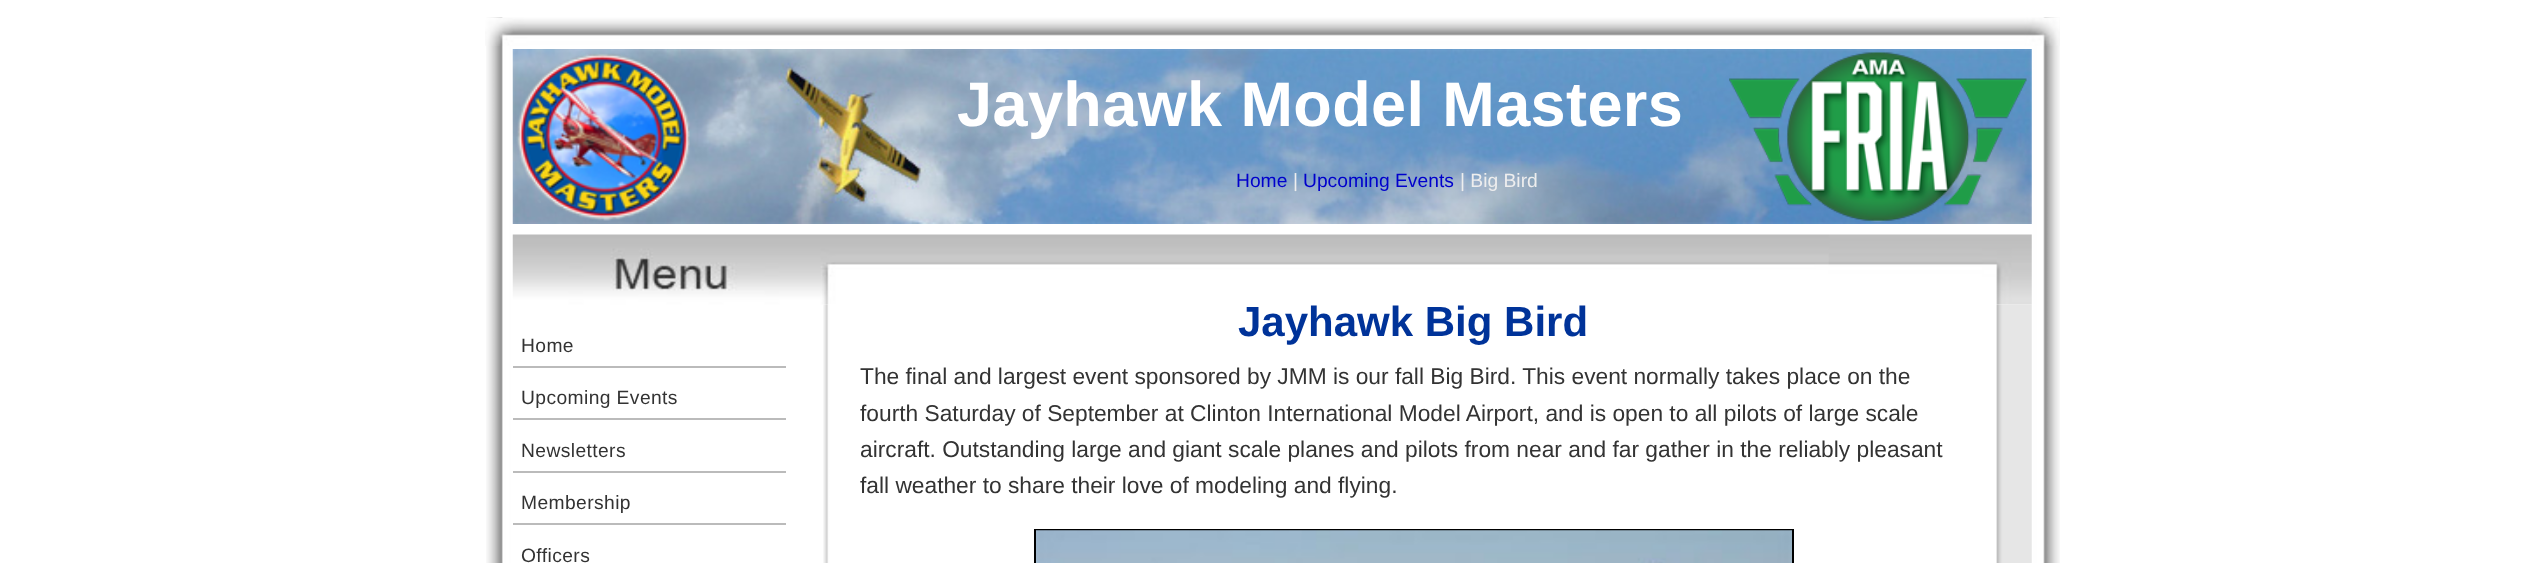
<!DOCTYPE html>
<meta charset="utf-8">
<style>body { margin: 0 } canvas { display: block }</style>
<canvas id="canvas" width="2525" height="563"></canvas>
<script type="module">
  const canvas = document.getElementById("canvas");
  const g = canvas.getContext("2d");
  g.miterLimit = 4;
  g.fontKerning = "normal";
  function drawText(s, x, y, [font, color]) {
    g.font = font;
    g.fillStyle = color;
    g.fillText(s, x, y);
  }
  function fillBox(x, y, w, h, color) {
    g.fillStyle = color;
    g.fillRect(x, y, w, h);
  }
  async function drawPicture(src, x, y, w, h) {
    const img = new Image();
    img.src = src;
    await img.decode();
    g.drawImage(img, x, y, w, h);
  }

  const s1 = ["bold 63px Liberation Sans", "#FFFFFF"];
  const s2 = ["19.25px Liberation Sans", "#0000CC"];
  const s3 = ["19.25px Liberation Sans", "#EEEEEE"];
  const s4 = ["19.25px Liberation Sans", "#333333"];
  const s5 = ["bold 42px Liberation Sans", "#003399"];
  const s6 = ["22.75px Liberation Sans", "#333333"];

  fillBox(0, 0, 2525, 563, "#FFFFFF");
  await drawPicture("pic1.png", 486, 17, 1574, 546);
  await drawPicture("pic2.png", 485, 17, 1575, 29);
  await drawPicture("pic3.png", 512, 49, 1520, 175);
  await drawPicture("pic4.png", 516, 53, 174, 168);
  g.letterSpacing = "0.4px";
  drawText("Jayhawk Model Masters", 957, 126, s1);
  await drawPicture("pic5.png", 1729, 52, 298, 170);
  g.letterSpacing = "0px";
  drawText("Home", 1236, 187, s2);
  drawText("|", 1293, 187, s3);
  drawText("Upcoming Events", 1303, 187, s2);
  drawText("| Big Bird", 1460, 187, s3);
  await drawPicture("pic6.png", 512, 234, 1520, 71);
  await drawPicture("pic7.png", 823, 304, 1209, 259);
  fillBox(513, 366, 273, 2, "#BBBBBB");
  g.letterSpacing = "0.4px";
  drawText("Home", 521, 352, s4);
  fillBox(513, 418, 273, 2, "#BBBBBB");
  drawText("Upcoming Events", 521, 404, s4);
  fillBox(513, 471, 273, 2, "#BBBBBB");
  drawText("Newsletters", 521, 457, s4);
  fillBox(513, 523, 273, 2, "#BBBBBB");
  drawText("Membership", 521, 509, s4);
  drawText("Officers", 521, 562, s4);
  g.letterSpacing = "0px";
  drawText("Jayhawk Big Bird", 1238, 336, s5);
  drawText("The final and largest event sponsored by JMM is our fall Big Bird. This event normally takes place on the", 860, 384, s6);
  drawText("fourth Saturday of September at Clinton International Model Airport, and is open to all pilots of large scale", 860, 421, s6);
  drawText("aircraft. Outstanding large and giant scale planes and pilots from near and far gather in the reliably pleasant", 860, 457, s6);
  drawText("fall weather to share their love of modeling and flying.", 860, 493, s6);
  g.strokeStyle = "#000000";
  g.lineWidth = 2;
  g.strokeRect(1035, 530, 758, 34);
  await drawPicture("pic8.png", 1036, 530, 756, 33);
</script>
